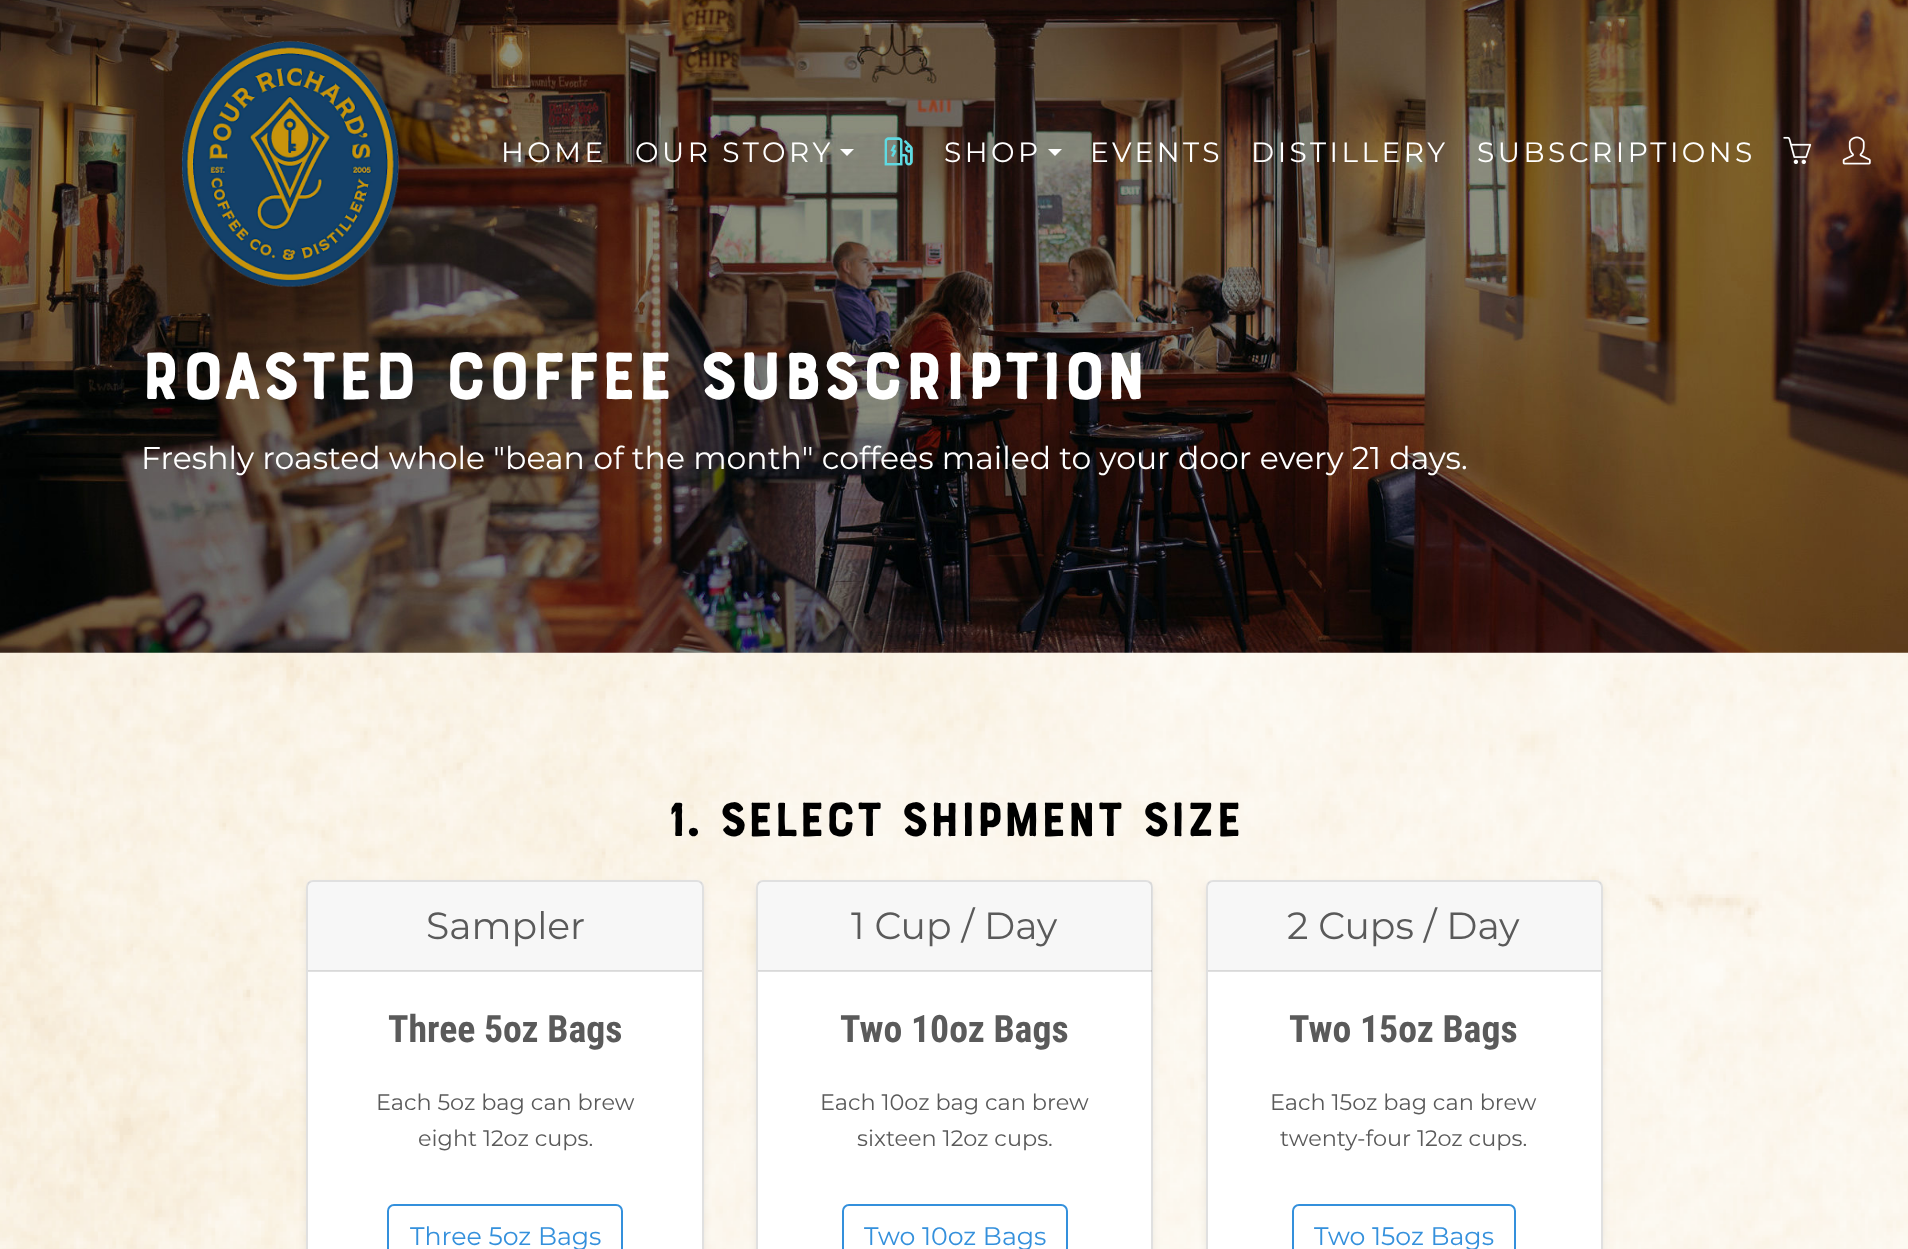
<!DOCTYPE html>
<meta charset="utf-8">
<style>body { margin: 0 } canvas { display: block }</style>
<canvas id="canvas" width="1908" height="1249"></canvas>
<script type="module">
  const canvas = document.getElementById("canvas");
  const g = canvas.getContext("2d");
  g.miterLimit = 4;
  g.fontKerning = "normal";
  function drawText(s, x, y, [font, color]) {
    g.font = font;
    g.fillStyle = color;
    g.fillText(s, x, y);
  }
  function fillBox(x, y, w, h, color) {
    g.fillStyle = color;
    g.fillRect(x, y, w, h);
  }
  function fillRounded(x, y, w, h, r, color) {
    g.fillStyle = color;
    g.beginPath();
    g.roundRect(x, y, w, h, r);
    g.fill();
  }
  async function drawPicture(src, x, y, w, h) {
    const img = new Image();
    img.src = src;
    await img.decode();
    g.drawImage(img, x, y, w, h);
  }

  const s1 = ["28px Montserrat", "#FFFFFF"];
  const s2 = ["70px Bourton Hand", "#FFFFFF"];
  const s3 = ["31.5px Montserrat", "#FFFFFF"];
  const s4 = ["50.4px Bourton Hand", "#000000"];
  const s5 = ["37.75px Montserrat", "#5A5A5A"];
  const s6 = ["bold 37.75px Roboto Condensed", "#5A5A5A"];
  const s7 = ["22.4px Montserrat", "#5A5A5A"];
  const s8 = ["25.25px Montserrat", "#3490DC"];

  fillBox(0, 0, 1908, 1249, "#FFFFFF");
  await drawPicture("pic1.png", 0, 652, 1908, 597);
  await drawPicture("pic6.png", 0, 0, 1908, 653);
  await drawPicture("pic2.png", 182, 40, 217, 247);
  g.letterSpacing = "3.5px";
  drawText("HOME", 501, 162, s1);
  drawText("OUR STORY", 635, 162, s1);
  g.beginPath();
  g.moveTo(840, 149);
  g.lineTo(854, 149);
  g.lineTo(847, 156);
  g.closePath();
  g.fill();
  await drawPicture("pic3.png", 884, 137, 29, 29);
  drawText("SHOP", 944, 162, s1);
  g.beginPath();
  g.moveTo(1048, 149);
  g.lineTo(1062, 149);
  g.lineTo(1055, 156);
  g.closePath();
  g.fill();
  drawText("EVENTS", 1090, 162, s1);
  drawText("DISTILLERY", 1251, 162, s1);
  drawText("SUBSCRIPTIONS", 1477, 162, s1);
  await drawPicture("pic4.png", 1783, 136, 29, 28);
  await drawPicture("pic5.png", 1842, 136, 29, 29);
  g.letterSpacing = "0px";
  drawText("Roasted Coffee Subscription", 141, 399, s2);
  drawText("Freshly roasted whole \"bean of the month\" coffees mailed to your door every 21 days.", 141, 469, s3);
  drawText("1. Select Shipment Size", 667, 836, s4);
  g.fillStyle = "rgba(0, 0, 0, 0.07)";
  g.filter = "blur(3.5px)";
  g.beginPath();
  g.roundRect(306, 884, 398, 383, 7);
  g.fill();
  g.filter = "none";
  fillRounded(306, 880, 398, 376, 7, "#FFFFFF");
  g.beginPath();
  g.roundRect(307, 881, 396, 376, 6);
  g.strokeStyle = "rgba(0, 0, 0, 0.12)";
  g.lineWidth = 2;
  g.stroke();
  fillBox(308, 882, 394, 89, "rgba(0, 0, 0, 0.03)");
  fillBox(308, 970, 394, 2, "rgba(0, 0, 0, 0.12)");
  drawText("Sampler", 426, 939, s5);
  drawText("Three 5oz Bags", 388, 1042, s6);
  drawText("Each 5oz bag can brew", 376, 1110, s7);
  drawText("eight 12oz cups.", 418, 1146, s7);
  g.beginPath();
  g.roundRect(388, 1205, 234, 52, 6);
  g.strokeStyle = "#3490DC";
  g.stroke();
  drawText("Three 5oz Bags", 410, 1245, s8);
  g.fillStyle = "rgba(0, 0, 0, 0.07)";
  g.filter = "blur(3.5px)";
  g.beginPath();
  g.roundRect(756, 884, 397, 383, 7);
  g.fill();
  g.filter = "none";
  fillRounded(756, 880, 397, 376, 7, "#FFFFFF");
  g.beginPath();
  g.roundRect(757, 881, 395, 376, 6);
  g.strokeStyle = "rgba(0, 0, 0, 0.12)";
  g.stroke();
  fillBox(758, 882, 394, 89, "rgba(0, 0, 0, 0.03)");
  fillBox(758, 970, 394, 2, "rgba(0, 0, 0, 0.12)");
  drawText("1 Cup / Day", 851, 939, s5);
  drawText("Two 10oz Bags", 840, 1042, s6);
  drawText("Each 10oz bag can brew", 820, 1110, s7);
  drawText("sixteen 12oz cups.", 857, 1146, s7);
  g.beginPath();
  g.roundRect(843, 1205, 224, 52, 6);
  g.strokeStyle = "#3490DC";
  g.stroke();
  drawText("Two 10oz Bags", 864, 1245, s8);
  g.fillStyle = "rgba(0, 0, 0, 0.07)";
  g.filter = "blur(3.5px)";
  g.beginPath();
  g.roundRect(1206, 884, 397, 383, 7);
  g.fill();
  g.filter = "none";
  fillRounded(1206, 880, 397, 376, 7, "#FFFFFF");
  g.beginPath();
  g.roundRect(1207, 881, 395, 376, 6);
  g.strokeStyle = "rgba(0, 0, 0, 0.12)";
  g.stroke();
  fillBox(1208, 882, 393, 89, "rgba(0, 0, 0, 0.03)");
  fillBox(1208, 970, 393, 2, "rgba(0, 0, 0, 0.12)");
  drawText("2 Cups / Day", 1287, 939, s5);
  drawText("Two 15oz Bags", 1289, 1042, s6);
  drawText("Each 15oz bag can brew", 1270, 1110, s7);
  drawText("twenty-four 12oz cups.", 1280, 1146, s7);
  g.beginPath();
  g.roundRect(1293, 1205, 222, 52, 6);
  g.strokeStyle = "#3490DC";
  g.stroke();
  drawText("Two 15oz Bags", 1314, 1245, s8);
</script>
